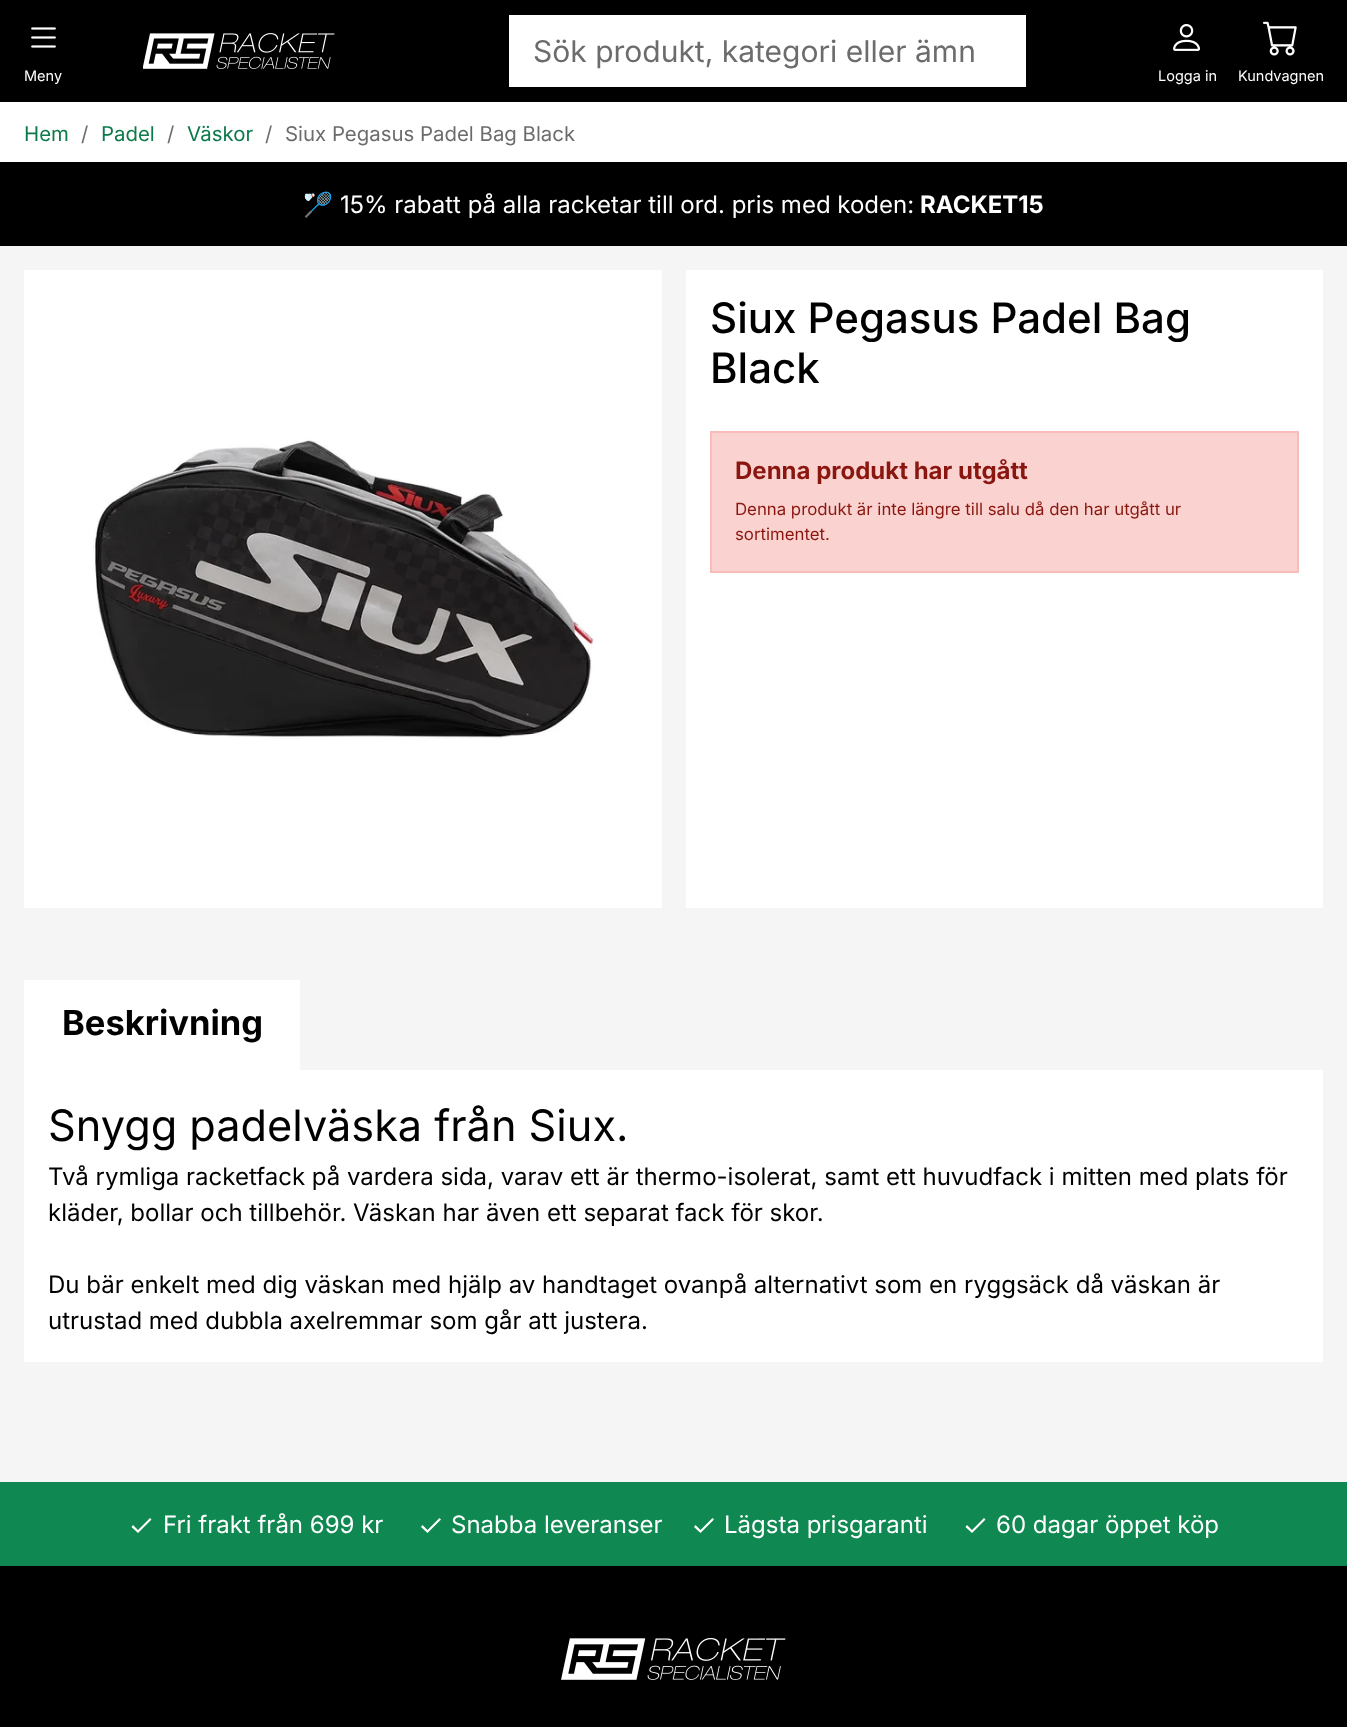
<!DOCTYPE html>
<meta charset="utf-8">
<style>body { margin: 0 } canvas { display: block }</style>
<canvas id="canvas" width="1347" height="1727"></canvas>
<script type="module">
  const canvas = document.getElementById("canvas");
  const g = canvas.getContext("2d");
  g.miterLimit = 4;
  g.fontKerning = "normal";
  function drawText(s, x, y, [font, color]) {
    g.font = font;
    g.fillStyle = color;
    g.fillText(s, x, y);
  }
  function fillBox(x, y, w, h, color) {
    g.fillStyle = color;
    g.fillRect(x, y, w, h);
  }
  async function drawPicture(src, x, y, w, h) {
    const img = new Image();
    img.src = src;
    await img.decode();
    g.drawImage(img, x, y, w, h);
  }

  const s1 = ["30px Inter", "#6C6C6C"];
  const s2 = ["14.5px Inter", "#FFFFFF"];
  const s3 = ["20.4px Inter", "#0D7A4A"];
  const s4 = ["20.4px Inter", "#6C6C6C"];
  const s5 = ["24px Noto Color Emoji", "#FFFFFF"];
  const s6 = ["24px Inter", "#FFFFFF"];
  const s7 = ["bold 24px Inter", "#FFFFFF"];
  const s8 = ["500 42px Inter", "#000000"];
  const s9 = ["bold 24px Inter", "#8A160F"];
  const s10 = ["16.8px Inter", "#8A160F"];
  const s11 = ["bold 34.5px Inter", "#000000"];
  const s12 = ["43.25px Inter", "#000000"];
  const s13 = ["24px Inter", "#000000"];

  fillBox(0, 0, 1347, 1727, "#F5F5F5");
  fillBox(0, 0, 1347, 102, "#000000");
  await drawPicture("pic1.png", 143, 33, 192, 36);
  fillBox(509, 15, 517, 72, "#FFFFFF");
  drawText("Sök produkt, kategori eller ämn", 533, 62, s1);
  await drawPicture("pic2.png", 31, 27, 25, 21);
  drawText("Meny", 24, 81, s2);
  await drawPicture("pic3.png", 1173, 24, 27, 27);
  drawText("Logga in", 1158, 81, s2);
  await drawPicture("pic4.png", 1263, 21, 34, 35);
  drawText("Kundvagnen", 1238, 81, s2);
  fillBox(0, 102, 1347, 60, "#FFFFFF");
  drawText("Hem", 24, 141, s3);
  drawText("/", 81, 141, s4);
  drawText("Padel", 101, 141, s3);
  drawText("/", 167, 141, s4);
  drawText("Väskor", 187, 141, s3);
  drawText("/", 265, 141, s4);
  drawText("Siux Pegasus Padel Bag Black", 285, 141, s4);
  fillBox(0, 162, 1347, 84, "#000000");
  drawText("🏸", 303, 213, s5);
  drawText("15% rabatt på alla racketar till ord. pris med koden:", 340, 213, s6);
  drawText("RACKET15", 920, 213, s7);
  fillBox(24, 270, 638, 638, "#FFFFFF");
  await drawPicture("pic5.png", 93, 438, 502, 301);
  fillBox(686, 270, 637, 638, "#FFFFFF");
  drawText("Siux Pegasus Padel Bag", 710, 333, s8);
  drawText("Black", 710, 383, s8);
  g.fillStyle = "#FAD3D1";
  g.beginPath();
  g.rect(711, 432, 587, 140);
  g.fill();
  g.strokeStyle = "#F8BDBA";
  g.lineWidth = 2;
  g.stroke();
  drawText("Denna produkt har utgått", 735, 479, s9);
  drawText("Denna produkt är inte längre till salu då den har utgått ur", 735, 515, s10);
  drawText("sortimentet.", 735, 540, s10);
  fillBox(24, 980, 276, 90, "#FFFFFF");
  drawText("Beskrivning", 62, 1035, s11);
  fillBox(24, 1070, 1299, 292, "#FFFFFF");
  drawText("Snygg padelväska från Siux.", 48, 1141, s12);
  drawText("Två rymliga racketfack på vardera sida, varav ett är thermo-isolerat, samt ett huvudfack i mitten med plats för", 48, 1185, s13);
  drawText("kläder, bollar och tillbehör. Väskan har även ett separat fack för skor.", 48, 1221, s13);
  drawText("Du bär enkelt med dig väskan med hjälp av handtaget ovanpå alternativt som en ryggsäck då väskan är", 48, 1293, s13);
  drawText("utrustad med dubbla axelremmar som går att justera.", 48, 1329, s13);
  fillBox(0, 1482, 1347, 84, "#0F8852");
  drawText("Fri frakt från 699 kr", 163, 1533, s6);
  g.beginPath();
  g.moveTo(138, 1530);
  g.lineTo(133, 1525);
  g.lineTo(131.5, 1527);
  g.lineTo(138, 1533);
  g.lineTo(151.5, 1519.5);
  g.lineTo(150, 1518);
  g.closePath();
  g.fill();
  drawText("Snabba leveranser", 451, 1533, s6);
  g.beginPath();
  g.moveTo(427.5, 1530);
  g.lineTo(422.5, 1525);
  g.lineTo(421, 1527);
  g.lineTo(427.5, 1533);
  g.lineTo(441, 1519.5);
  g.lineTo(439.5, 1518);
  g.closePath();
  g.fill();
  drawText("Lägsta prisgaranti", 724, 1533, s6);
  g.beginPath();
  g.moveTo(700.5, 1530);
  g.lineTo(695.5, 1525);
  g.lineTo(694, 1527);
  g.lineTo(700.5, 1533);
  g.lineTo(714, 1519.5);
  g.lineTo(712.5, 1518);
  g.closePath();
  g.fill();
  drawText("60 dagar öppet köp", 996, 1533, s6);
  g.beginPath();
  g.moveTo(972, 1530);
  g.lineTo(967, 1525);
  g.lineTo(965.5, 1527);
  g.lineTo(972, 1533);
  g.lineTo(985.5, 1519.5);
  g.lineTo(984, 1518);
  g.closePath();
  g.fill();
  fillBox(0, 1566, 1347, 161, "#000000");
  await drawPicture("pic6.png", 561, 1638, 225, 42);
</script>
